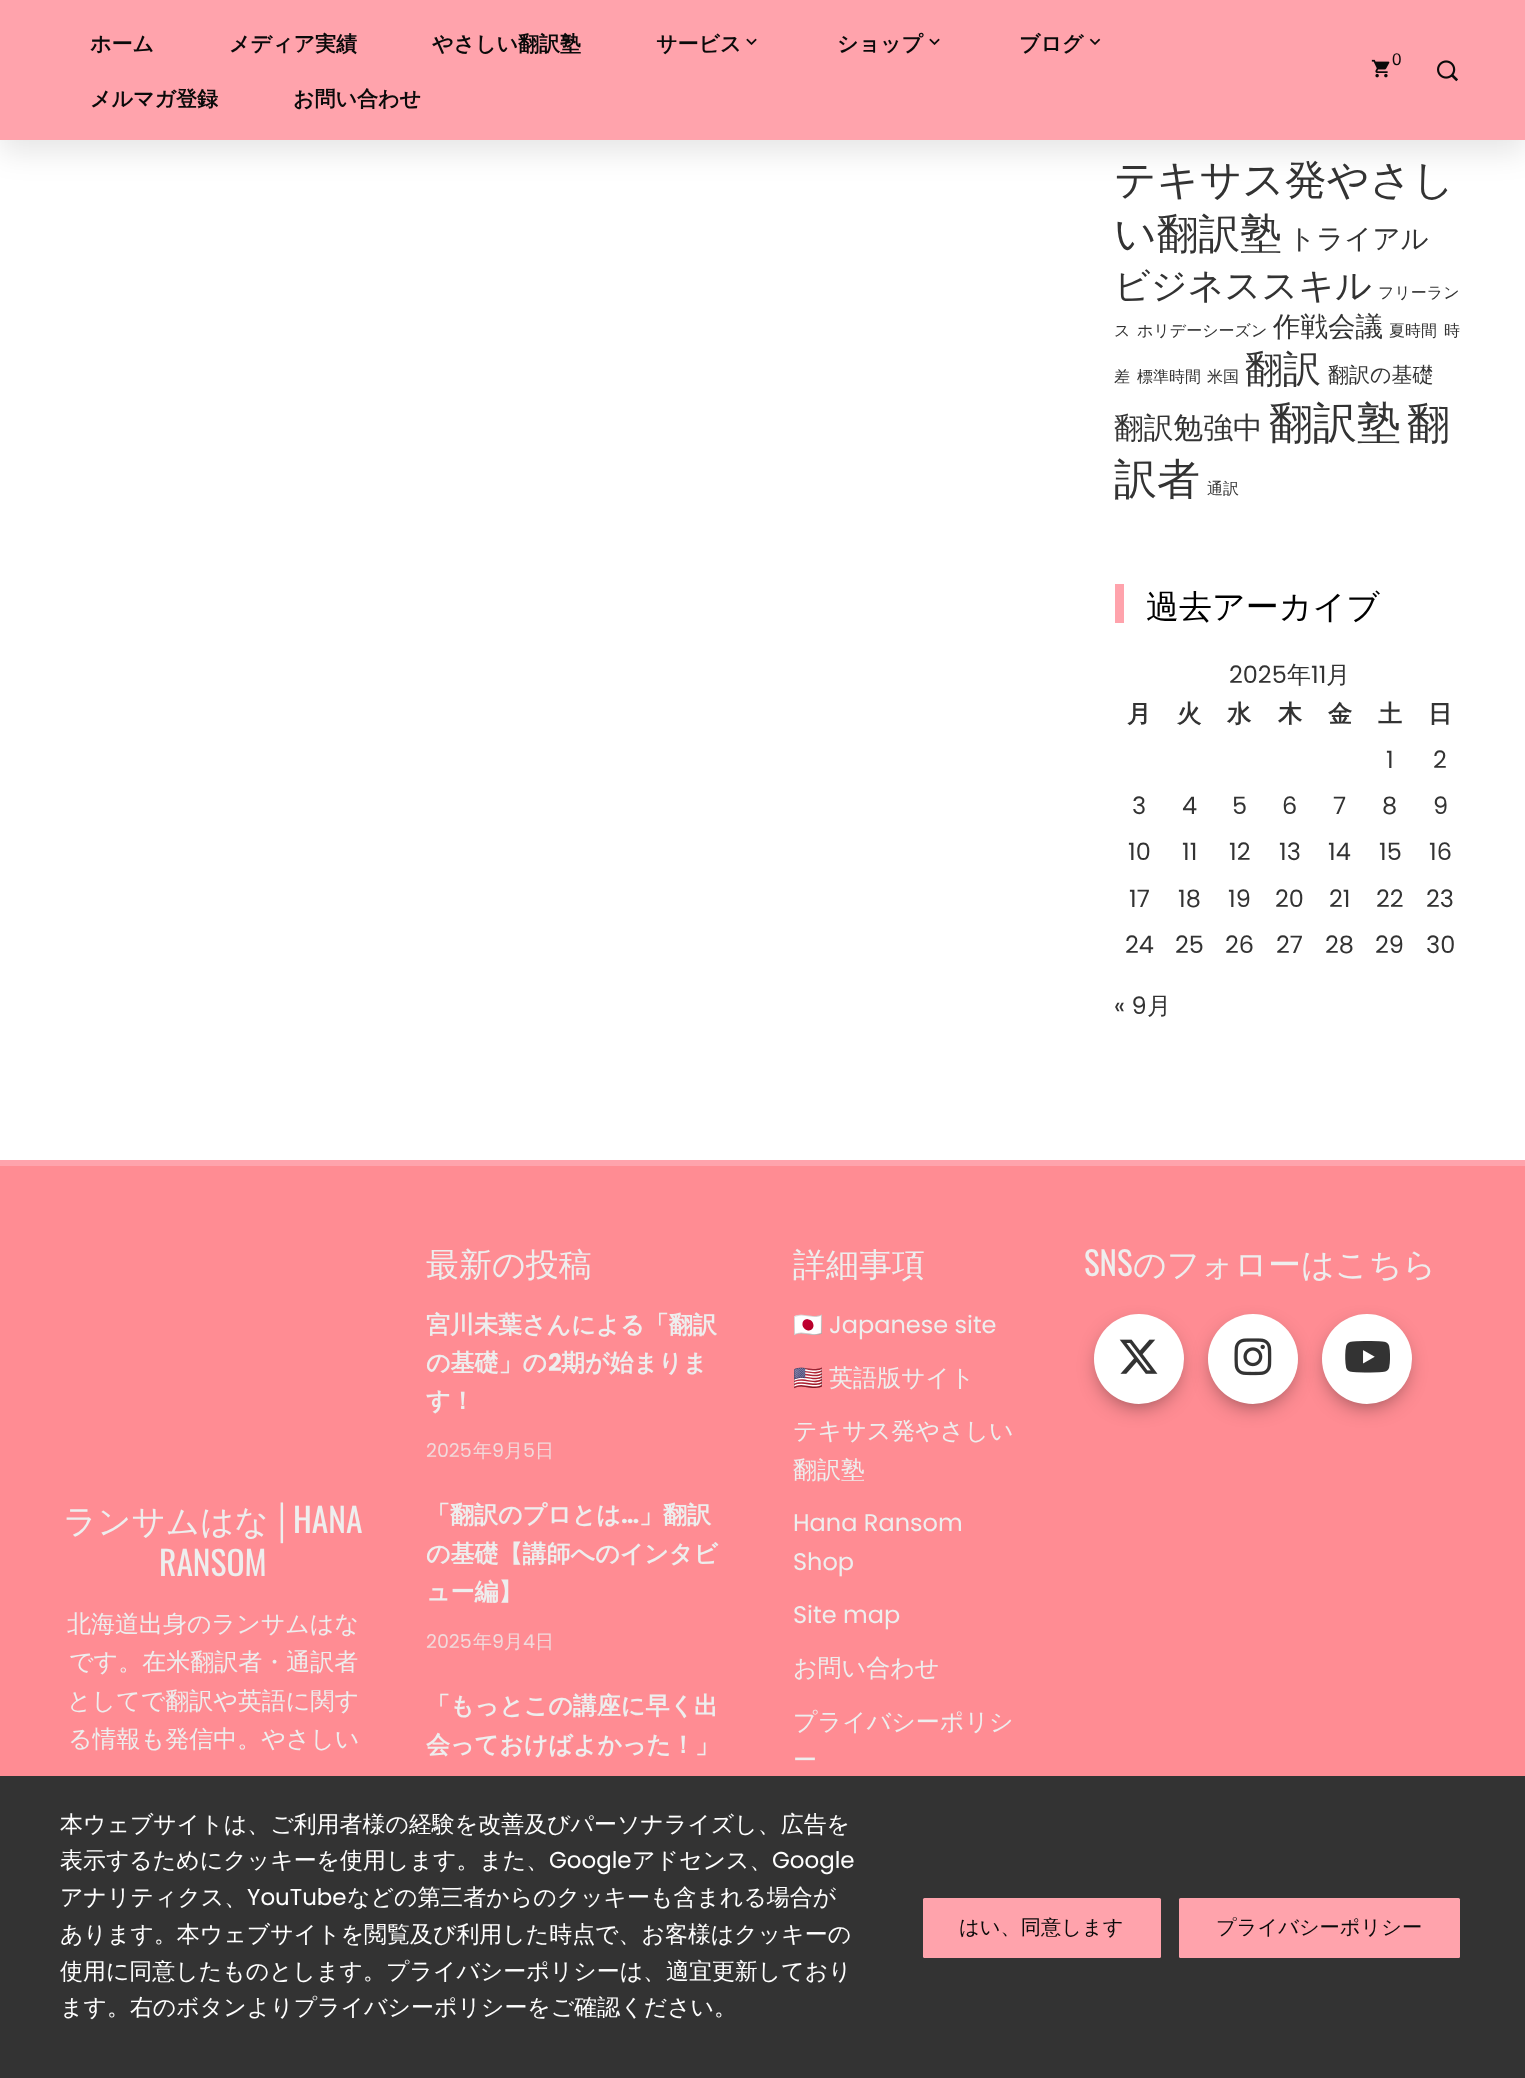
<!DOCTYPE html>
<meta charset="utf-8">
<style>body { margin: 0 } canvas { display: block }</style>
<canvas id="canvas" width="1525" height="2078"></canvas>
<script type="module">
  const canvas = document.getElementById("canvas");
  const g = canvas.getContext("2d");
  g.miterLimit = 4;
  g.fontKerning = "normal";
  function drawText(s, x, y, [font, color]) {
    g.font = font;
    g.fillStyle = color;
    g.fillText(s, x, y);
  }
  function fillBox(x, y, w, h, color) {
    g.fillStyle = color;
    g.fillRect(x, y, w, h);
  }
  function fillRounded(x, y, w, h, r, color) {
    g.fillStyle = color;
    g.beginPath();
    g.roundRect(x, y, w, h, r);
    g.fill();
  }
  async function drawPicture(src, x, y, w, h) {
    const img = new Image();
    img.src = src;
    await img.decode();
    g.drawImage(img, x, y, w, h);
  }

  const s1 = ["bold 21px WenQuanYi Zen Hei", "#0A0A0A"];
  const s2 = ["17px Liberation Sans", "#0A0A0A"];
  const s3 = ["500 41.75px WenQuanYi Zen Hei", "#333333"];
  const s4 = ["500 27.5px WenQuanYi Zen Hei", "#333333"];
  const s5 = ["500 36px WenQuanYi Zen Hei", "#333333"];
  const s6 = ["500 16px WenQuanYi Zen Hei", "#333333"];
  const s7 = ["500 38px WenQuanYi Zen Hei", "#333333"];
  const s8 = ["500 21px WenQuanYi Zen Hei", "#333333"];
  const s9 = ["500 29.75px WenQuanYi Zen Hei", "#333333"];
  const s10 = ["500 44px WenQuanYi Zen Hei", "#333333"];
  const s11 = ["500 43px WenQuanYi Zen Hei", "#333333"];
  const s12 = ["500 33px WenQuanYi Zen Hei", "#000000"];
  const s13 = ["24px Poppins", "#333333"];
  const s14 = ["500 24px WenQuanYi Zen Hei", "#333333"];
  const s15 = ["bold 24px WenQuanYi Zen Hei", "#333333"];
  const s16 = ["500 33px WenQuanYi Zen Hei", "#EEEEEE"];
  const s17 = ["bold 24px WenQuanYi Zen Hei", "#EEEEEE"];
  const s18 = ["bold 24px Poppins", "#EEEEEE"];
  const s19 = ["19px Poppins", "#F1DADC"];
  const s20 = ["500 19px WenQuanYi Zen Hei", "#F1DADC"];
  const s21 = ["24px Noto Color Emoji", "#EEEEEE"];
  const s22 = ["24px Poppins", "#EEEEEE"];
  const s23 = ["500 24px WenQuanYi Zen Hei", "#EEEEEE"];
  const s24 = ["33px Oswald", "#EEEEEE"];
  const s25 = ["500 33.5px WenQuanYi Zen Hei", "#EEEEEE"];
  const s26 = ["33.5px Liberation Serif", "#EEEEEE"];
  const s27 = ["33.5px Oswald", "#EEEEEE"];
  const s28 = ["500 22.95px WenQuanYi Zen Hei", "#FFFFFF"];
  const s29 = ["22.95px Poppins", "#FFFFFF"];
  const s30 = ["500 20.25px WenQuanYi Zen Hei", "#0A0A0A"];

  fillBox(0, 0, 1525, 2078, "#FFFFFF");
  g.fillStyle = "rgba(0, 0, 0, 0.1)";
  g.filter = "blur(15px)";
  g.beginPath();
  g.rect(0, 12, 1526, 140);
  g.fill();
  g.filter = "none";
  fillBox(0, 0, 1525, 140, "#FFA3AC");
  drawText("ホーム", 90, 51, s1);
  drawText("メディア実績", 229, 51, s1);
  drawText("やさしい翻訳塾", 432, 51, s1);
  drawText("サービス", 656, 51, s1);
  await drawPicture("pic1.png", 746, 38, 11, 7);
  drawText("ショップ", 837, 51, s1);
  await drawPicture("pic1.png", 929, 38, 11, 7);
  drawText("ブログ", 1019, 51, s1);
  await drawPicture("pic2.png", 1089, 38, 12, 7);
  drawText("メルマガ登録", 90, 106, s1);
  drawText("お問い合わせ", 293, 106, s1);
  await drawPicture("pic3.png", 1371, 59, 19, 19);
  drawText("0", 1392, 65, s2);
  await drawPicture("pic4.png", 1437, 60, 21, 22);
  drawText("テキサス発やさし", 1114, 194, s3);
  drawText("い翻訳塾", 1114, 248, s3);
  drawText("トライアル", 1288, 248, s4);
  drawText("ビジネススキル", 1114, 298, s5);
  drawText("フリーラン", 1378, 298, s6);
  drawText("ス", 1114, 336, s6);
  drawText("ホリデーシーズン", 1137, 336, s6);
  drawText("作戦会議", 1273, 336, s4);
  drawText("夏時間", 1389, 336, s6);
  drawText("時", 1444, 336, s6);
  drawText("差", 1114, 382, s6);
  drawText("標準時間", 1137, 382, s6);
  drawText("米国", 1207, 382, s6);
  drawText("翻訳", 1245, 382, s7);
  drawText("翻訳の基礎", 1328, 382, s8);
  drawText("翻訳勉強中", 1114, 438, s9);
  drawText("翻訳塾", 1269, 438, s10);
  drawText("翻", 1407, 438, s11);
  drawText("訳者", 1114, 494, s11);
  drawText("通訳", 1207, 494, s6);
  fillBox(1115, 584, 9, 39, "#FFA3AC");
  drawText("過去アーカイブ", 1146, 618, s12);
  drawText("2025", 1229, 683, s13);
  drawText("年", 1287, 683, s14);
  drawText("11", 1311, 683, s13);
  drawText("月", 1326, 683, s14);
  drawText("月", 1127, 722, s15);
  drawText("火", 1177, 722, s15);
  drawText("水", 1227, 722, s15);
  drawText("木", 1278, 722, s15);
  drawText("金", 1328, 722, s15);
  drawText("土", 1378, 722, s15);
  drawText("日", 1428, 722, s15);
  drawText("1", 1386, 768, s13);
  drawText("2", 1433, 768, s13);
  drawText("3", 1132, 814, s13);
  drawText("4", 1182, 814, s13);
  drawText("5", 1232, 814, s13);
  drawText("6", 1282, 814, s13);
  drawText("7", 1333, 814, s13);
  drawText("8", 1382, 814, s13);
  drawText("9", 1433, 814, s13);
  drawText("10", 1128, 860, s13);
  drawText("11", 1182, 860, s13);
  drawText("12", 1229, 860, s13);
  drawText("13", 1279, 860, s13);
  drawText("14", 1328, 860, s13);
  drawText("15", 1379, 860, s13);
  drawText("16", 1429, 860, s13);
  drawText("17", 1129, 907, s13);
  drawText("18", 1178, 907, s13);
  drawText("19", 1228, 907, s13);
  drawText("20", 1275, 907, s13);
  drawText("21", 1329, 907, s13);
  drawText("22", 1376, 907, s13);
  drawText("23", 1426, 907, s13);
  drawText("24", 1125, 953, s13);
  drawText("25", 1175, 953, s13);
  drawText("26", 1225, 953, s13);
  drawText("27", 1276, 953, s13);
  drawText("28", 1325, 953, s13);
  drawText("29", 1375, 953, s13);
  drawText("30", 1426, 953, s13);
  drawText("« 9", 1114, 1014, s13);
  drawText("月", 1147, 1014, s14);
  fillBox(0, 1166, 1525, 610, "#FF8C93");
  fillBox(0, 1160, 1525, 6, "#FFA3AC");
  drawText("最新の投稿", 426, 1276, s16);
  drawText("宮川未葉さんによる「翻訳", 426, 1333, s17);
  drawText("の基礎」の", 426, 1371, s17);
  drawText("2", 548, 1371, s18);
  drawText("期が始まりま", 561, 1371, s17);
  drawText("す！", 426, 1409, s17);
  drawText("2025", 426, 1457, s19);
  drawText("年", 473, 1457, s20);
  drawText("9", 492, 1457, s19);
  drawText("月", 504, 1457, s20);
  drawText("5", 523, 1457, s19);
  drawText("日", 535, 1457, s20);
  drawText("「翻訳のプロとは", 426, 1523, s17);
  drawText("…", 621, 1523, s18);
  drawText("」翻訳", 639, 1523, s17);
  drawText("の基礎【講師へのインタビ", 426, 1562, s17);
  drawText("ュー編】", 426, 1600, s17);
  drawText("2025", 426, 1648, s19);
  drawText("年", 473, 1648, s20);
  drawText("9", 492, 1648, s19);
  drawText("月", 504, 1648, s20);
  drawText("4", 523, 1648, s19);
  drawText("日", 535, 1648, s20);
  drawText("「もっとこの講座に早く出", 426, 1714, s17);
  drawText("会っておけばよかった！」", 426, 1753, s17);
  drawText("詳細事項", 793, 1276, s16);
  drawText("🇯🇵", 793, 1333, s21);
  drawText("Japanese site", 829, 1333, s22);
  drawText("🇺🇸", 793, 1386, s21);
  drawText("英語版サイト", 829, 1386, s23);
  drawText("テキサス発やさしい", 793, 1439, s23);
  drawText("翻訳塾", 793, 1478, s23);
  drawText("Hana Ransom", 793, 1531, s22);
  drawText("Shop", 793, 1570, s22);
  drawText("Site map", 793, 1623, s22);
  drawText("お問い合わせ", 793, 1676, s23);
  drawText("プライバシーポリシ", 793, 1730, s23);
  drawText("ー", 793, 1768, s23);
  drawText("SNS", 1084, 1276, s24);
  drawText("のフォローはこちら", 1133, 1276, s16);
  g.fillStyle = "rgba(0, 0, 0, 0.5)";
  g.filter = "blur(11px)";
  g.beginPath();
  g.roundRect(1101, 1329, 75, 75, 37.5);
  g.fill();
  g.filter = "none";
  g.fillStyle = "#FFFFFF";
  g.beginPath();
  g.arc(1139, 1359, 45, 0, Math.PI * 2);
  g.fill();
  await drawPicture("pic5.png", 1119, 1339, 39, 35);
  g.fillStyle = "rgba(0, 0, 0, 0.5)";
  g.filter = "blur(11px)";
  g.beginPath();
  g.roundRect(1215, 1329, 75, 75, 37.5);
  g.fill();
  g.filter = "none";
  g.fillStyle = "#FFFFFF";
  g.beginPath();
  g.arc(1253, 1359, 45, 0, Math.PI * 2);
  g.fill();
  await drawPicture("pic6.png", 1234, 1338, 38, 38);
  g.fillStyle = "rgba(0, 0, 0, 0.5)";
  g.filter = "blur(11px)";
  g.beginPath();
  g.roundRect(1329, 1329, 75, 75, 37.5);
  g.fill();
  g.filter = "none";
  g.fillStyle = "#FFFFFF";
  g.beginPath();
  g.arc(1367, 1359, 45, 0, Math.PI * 2);
  g.fill();
  await drawPicture("pic7.png", 1345, 1341, 45, 32);
  drawText("ランサムはな", 63, 1533, s25);
  drawText("│", 270, 1533, s26);
  drawText("HANA", 293, 1533, s27);
  drawText("RANSOM", 159, 1576, s27);
  drawText("北海道出身のランサムはな", 67, 1632, s23);
  drawText("です。在米翻訳者・通訳者", 69, 1670, s23);
  drawText("としてで翻訳や英語に関す", 67, 1709, s23);
  drawText("る情報も発信中。やさしい", 68, 1747, s23);
  fillBox(0, 1776, 1525, 302, "#333333");
  drawText("本ウェブサイトは、ご利用者様の経験を改善及びパーソナライズし、広告を", 60, 1832, s28);
  drawText("表示するためにクッキーを使用します。また、", 60, 1868, s28);
  drawText("Google", 549, 1868, s29);
  drawText("アドセンス、", 632, 1868, s28);
  drawText("Google", 772, 1868, s29);
  drawText("アナリティクス、", 60, 1905, s28);
  drawText("YouTube", 247, 1905, s29);
  drawText("などの第三者からのクッキーも含まれる場合が", 347, 1905, s28);
  drawText("あります。本ウェブサイトを閲覧及び利用した時点で、お客様はクッキーの", 60, 1942, s28);
  drawText("使用に同意したものとします。プライバシーポリシーは、適宜更新しており", 60, 1979, s28);
  drawText("ます。右のボタンよりプライバシーポリシーをご確認ください。", 60, 2015, s28);
  fillRounded(923, 1898, 238, 60, 1.5, "#FFA3AC");
  drawText("はい、同意します", 959, 1934, s30);
  fillRounded(1179, 1898, 281, 60, 1.5, "#FFA3AC");
  drawText("プライバシーポリシー", 1216, 1934, s30);
</script>
